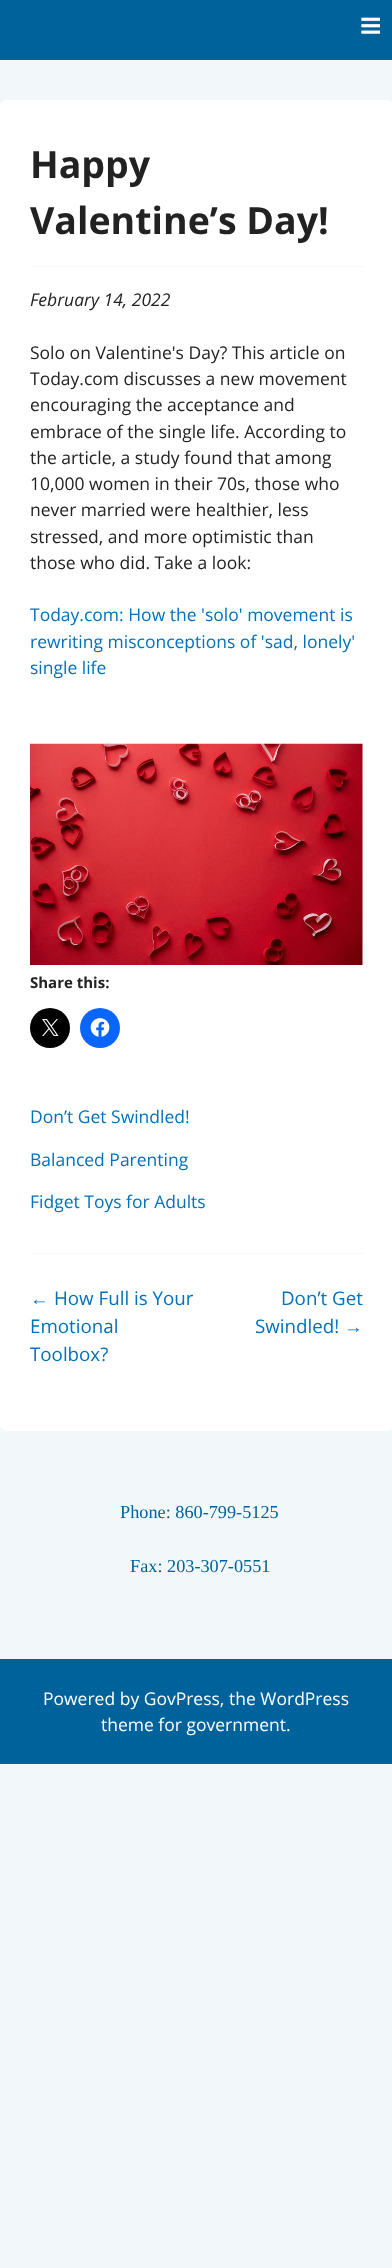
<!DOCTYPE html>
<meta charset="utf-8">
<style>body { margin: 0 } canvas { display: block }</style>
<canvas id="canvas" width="392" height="2268"></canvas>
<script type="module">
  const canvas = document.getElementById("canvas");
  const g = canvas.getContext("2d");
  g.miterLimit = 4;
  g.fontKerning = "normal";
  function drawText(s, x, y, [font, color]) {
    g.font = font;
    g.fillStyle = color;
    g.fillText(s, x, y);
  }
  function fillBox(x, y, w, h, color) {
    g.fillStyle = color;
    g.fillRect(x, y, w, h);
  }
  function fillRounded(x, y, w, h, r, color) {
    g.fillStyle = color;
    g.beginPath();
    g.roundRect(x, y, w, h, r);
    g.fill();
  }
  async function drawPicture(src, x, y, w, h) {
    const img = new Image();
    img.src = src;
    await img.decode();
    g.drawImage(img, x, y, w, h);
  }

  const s1 = ["bold 37.5px Open Sans", "#222222"];
  const s2 = ["italic 17.5px Open Sans", "#222222"];
  const s3 = ["17.5px Open Sans", "#222222"];
  const s4 = ["17.5px Open Sans", "#0071BC"];
  const s5 = ["bold 15px Open Sans", "#222222"];
  const s6 = ["18.75px Liberation Sans", "#0071BC"];
  const s7 = ["18.75px Open Sans", "#0071BC"];
  const s8 = ["18.25px Liberation Serif", "#00629B"];
  const s9 = ["17.5px Open Sans", "#FFFFFF"];

  fillBox(0, 0, 392, 2268, "#F2F7F9");
  fillBox(0, 0, 392, 60, "#00629B");
  await drawPicture("pic1.png", 361, 17, 19, 17);
  fillRounded(0, 100, 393, 1331, 6, "#FFFFFF");
  fillBox(30, 266, 333, 1, "#F8F8F8");
  drawText("Happy", 30, 178, s1);
  drawText("Valentine’s Day!", 30, 234, s1);
  fillBox(30, 1253, 333, 1, "#F8F8F8");
  drawText("February 14, 2022", 30, 306, s2);
  drawText("Solo on Valentine's Day? This article on", 30, 359, s3);
  drawText("Today.com discusses a new movement", 30, 385, s3);
  drawText("encouraging the acceptance and", 30, 411, s3);
  drawText("embrace of the single life. According to", 30, 438, s3);
  drawText("the article, a study found that among", 30, 464, s3);
  drawText("10,000 women in their 70s, those who", 30, 490, s3);
  drawText("never married were healthier, less", 30, 516, s3);
  drawText("stressed, and more optimistic than", 30, 543, s3);
  drawText("those who did. Take a look:", 30, 569, s3);
  drawText("Today.com: How the 'solo' movement is", 30, 621, s4);
  drawText("rewriting misconceptions of 'sad, lonely'", 30, 648, s4);
  drawText("single life", 30, 674, s4);
  await drawPicture("pic2.png", 30, 743, 333, 222);
  drawText("Share this:", 30, 988, s5);
  g.fillStyle = "#000000";
  g.beginPath();
  g.arc(50, 1028, 20, 0, Math.PI * 2);
  g.fill();
  await drawPicture("pic3.png", 42, 1019, 17, 17);
  g.fillStyle = "#0866FF";
  g.beginPath();
  g.arc(100, 1028, 20, 0, Math.PI * 2);
  g.fill();
  await drawPicture("pic4.png", 90, 1018, 20, 19);
  drawText("Don’t Get Swindled!", 30, 1123, s4);
  drawText("Balanced Parenting", 30, 1166, s4);
  drawText("Fidget Toys for Adults", 30, 1208, s4);
  drawText("←", 30, 1305, s6);
  drawText("How Full is Your", 54, 1305, s7);
  drawText("Emotional", 30, 1333, s7);
  drawText("Toolbox?", 30, 1361, s7);
  drawText("Don’t Get", 281, 1305, s7);
  drawText("Swindled!", 255, 1333, s7);
  drawText("→", 344, 1333, s6);
  drawText("Phone: 860-799-5125", 120, 1518, s8);
  drawText("Fax: 203-307-0551", 130, 1572, s8);
  fillBox(0, 1659, 392, 105, "#00629B");
  drawText("Powered by GovPress, the WordPress", 43, 1705, s9);
  drawText("theme for government.", 101, 1731, s9);
</script>
